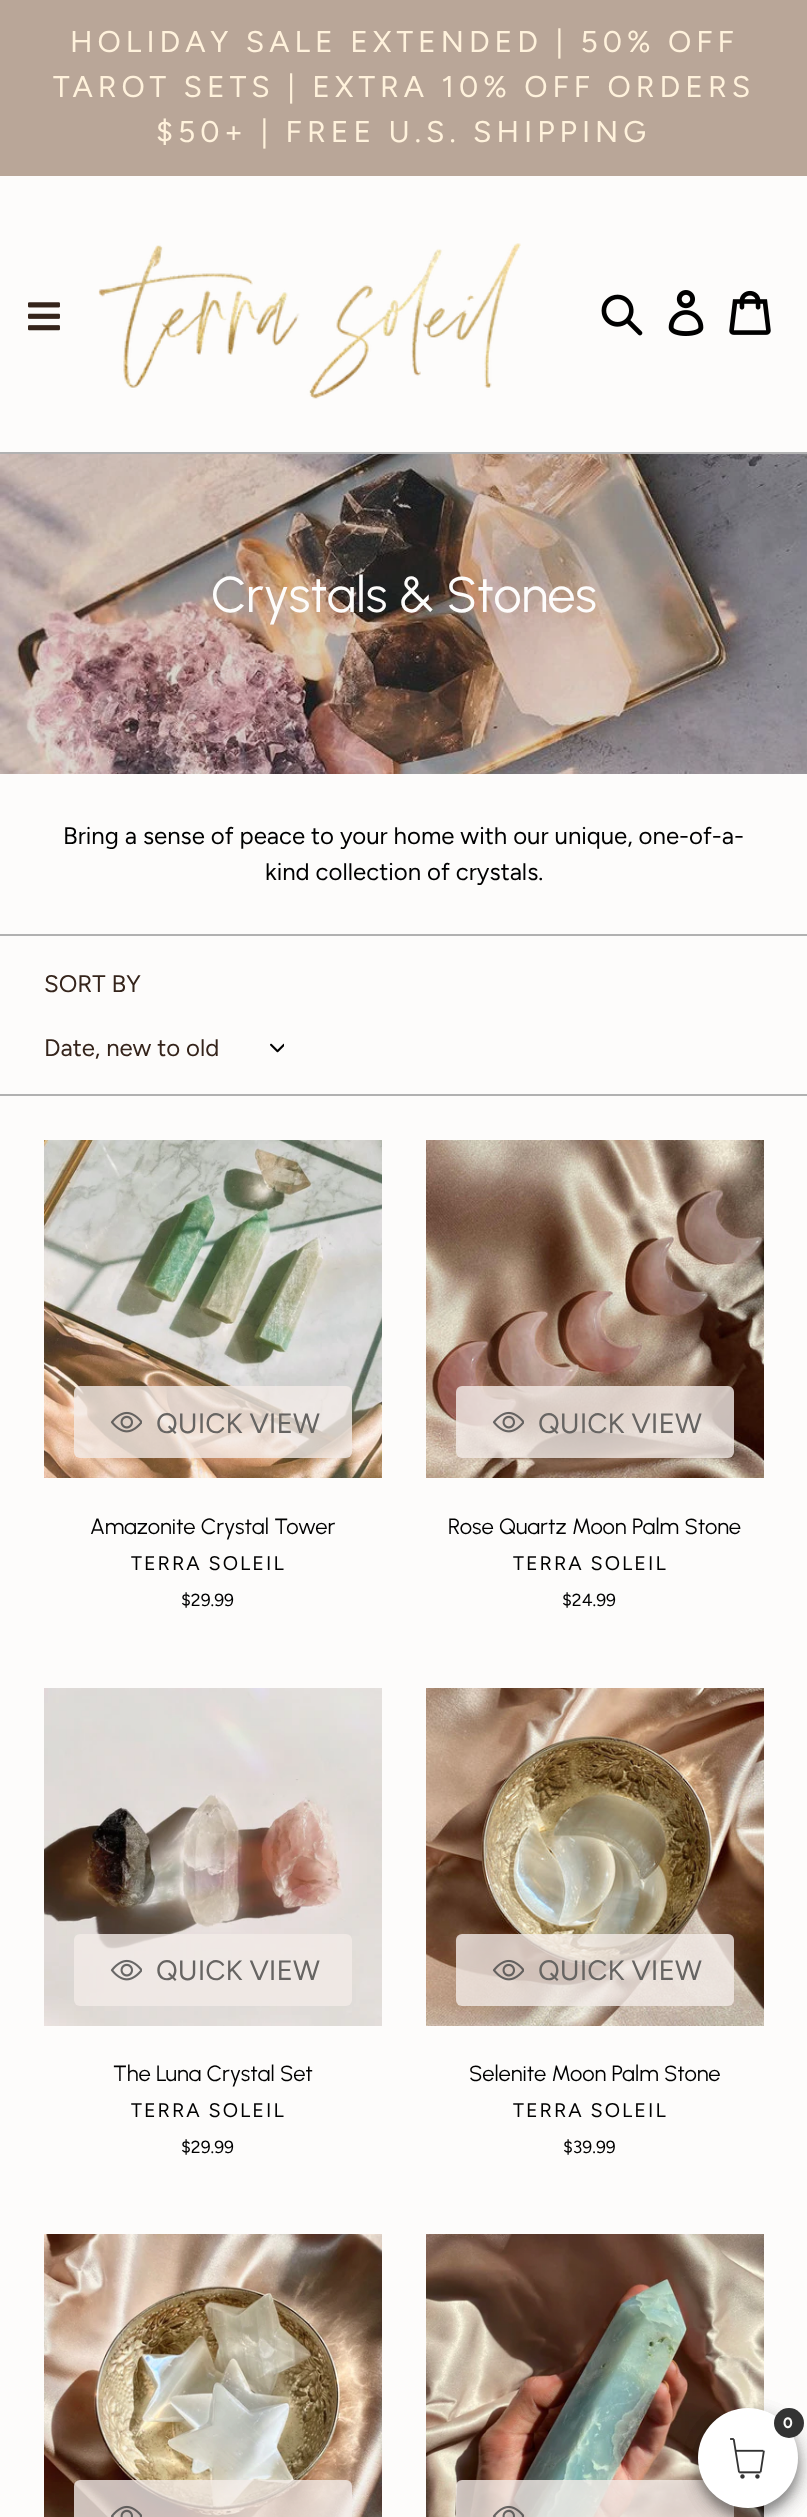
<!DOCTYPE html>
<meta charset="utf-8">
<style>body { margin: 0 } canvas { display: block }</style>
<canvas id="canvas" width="807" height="2517"></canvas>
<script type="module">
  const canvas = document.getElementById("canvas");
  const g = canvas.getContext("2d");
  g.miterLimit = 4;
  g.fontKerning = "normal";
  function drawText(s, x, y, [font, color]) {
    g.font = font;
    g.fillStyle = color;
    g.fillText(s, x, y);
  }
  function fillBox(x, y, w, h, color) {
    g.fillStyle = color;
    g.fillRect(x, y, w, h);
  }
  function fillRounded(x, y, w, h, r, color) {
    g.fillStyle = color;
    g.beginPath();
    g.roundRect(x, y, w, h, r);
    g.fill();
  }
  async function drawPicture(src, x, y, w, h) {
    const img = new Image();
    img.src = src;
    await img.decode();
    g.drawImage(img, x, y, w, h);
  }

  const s1 = ["30px Figtree", "#FFF2DC"];
  const s2 = ["50px Urbanist", "#FDFCFB"];
  const s3 = ["24px Figtree", "#000000"];
  const s4 = ["24px Figtree", "#35241B"];
  const s5 = ["28px Figtree", "#666462"];
  const s6 = ["22px Urbanist", "#000000"];
  const s7 = ["19.75px Figtree", "#000000"];
  const s8 = ["17.5px Figtree", "#000000"];
  const s9 = ["bold 15px Figtree", "#FDFCFB"];

  fillBox(0, 0, 807, 2517, "#FDFCFB");
  fillBox(0, 0, 807, 176, "#B9A698");
  g.letterSpacing = "5px";
  drawText("HOLIDAY SALE EXTENDED | 50% OFF", 70, 52, s1);
  drawText("TAROT SETS | EXTRA 10% OFF ORDERS", 53, 97, s1);
  drawText("$50+ | FREE U.S. SHIPPING", 156, 142, s1);
  fillBox(0, 452, 807, 2, "#B1B1B1");
  await drawPicture("pic1.png", 28, 302, 32, 29);
  await drawPicture("pic2.png", 98, 243, 423, 156);
  await drawPicture("pic3.png", 601, 294, 42, 42);
  await drawPicture("pic4.png", 668, 290, 36, 46);
  await drawPicture("pic5.png", 729, 290, 42, 45);
  await drawPicture("pic6.png", 0, 454, 807, 320);
  g.letterSpacing = "0px";
  drawText("Crystals & Stones", 211, 612, s2);
  drawText("Bring a sense of peace to your home with our unique, one-of-a-", 63, 844, s3);
  drawText("kind collection of crystals.", 265, 880, s3);
  fillBox(0, 934, 807, 2, "#B1B1B1");
  fillBox(0, 1094, 807, 2, "#B1B1B1");
  drawText("SORT BY", 44, 992, s4);
  drawText("Date, new to old", 44, 1056, s4);
  await drawPicture("pic7.png", 270, 1043, 14, 10);
  await drawPicture("pic8.png", 44, 1140, 338, 338);
  fillRounded(74, 1386, 278, 72, 6, "rgba(243, 235, 231, 0.8)");
  await drawPicture("pic9.png", 110, 1411, 32, 22);
  drawText("QUICK VIEW", 156, 1433, s5);
  drawText("Amazonite Crystal Tower", 90, 1534, s6);
  g.letterSpacing = "2px";
  drawText("TERRA SOLEIL", 131, 1570, s7);
  g.letterSpacing = "0px";
  drawText("$29.99", 181, 1606, s8);
  await drawPicture("pic10.png", 426, 1140, 338, 338);
  fillRounded(456, 1386, 278, 72, 6, "rgba(243, 235, 231, 0.8)");
  await drawPicture("pic11.png", 492, 1411, 32, 22);
  drawText("QUICK VIEW", 538, 1433, s5);
  drawText("Rose Quartz Moon Palm Stone", 448, 1534, s6);
  g.letterSpacing = "2px";
  drawText("TERRA SOLEIL", 513, 1570, s7);
  g.letterSpacing = "0px";
  drawText("$24.99", 562, 1606, s8);
  await drawPicture("pic12.png", 44, 1688, 338, 338);
  fillRounded(74, 1934, 278, 72, 6, "rgba(243, 235, 231, 0.8)");
  await drawPicture("pic13.png", 110, 1959, 32, 22);
  drawText("QUICK VIEW", 156, 1980, s5);
  drawText("The Luna Crystal Set", 113, 2081, s6);
  g.letterSpacing = "2px";
  drawText("TERRA SOLEIL", 131, 2117, s7);
  g.letterSpacing = "0px";
  drawText("$29.99", 181, 2153, s8);
  await drawPicture("pic14.png", 426, 1688, 338, 338);
  fillRounded(456, 1934, 278, 72, 6, "rgba(243, 235, 231, 0.8)");
  await drawPicture("pic15.png", 492, 1959, 32, 22);
  drawText("QUICK VIEW", 538, 1980, s5);
  drawText("Selenite Moon Palm Stone", 469, 2081, s6);
  g.letterSpacing = "2px";
  drawText("TERRA SOLEIL", 513, 2117, s7);
  g.letterSpacing = "0px";
  drawText("$39.99", 563, 2153, s8);
  await drawPicture("pic16.png", 44, 2234, 338, 283);
  fillRounded(74, 2480, 278, 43, 6, "rgba(243, 235, 231, 0.8)");
  await drawPicture("pic17.png", 110, 2505, 32, 12);
  await drawPicture("pic18.png", 426, 2234, 338, 283);
  fillRounded(456, 2480, 278, 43, 6, "rgba(243, 235, 231, 0.8)");
  await drawPicture("pic19.png", 492, 2505, 32, 12);
  g.fillStyle = "rgba(0, 0, 0, 0.08)";
  g.filter = "blur(4px)";
  g.beginPath();
  g.roundRect(698, 2416, 100, 100, 50);
  g.fill();
  g.filter = "none";
  g.fillStyle = "rgba(0, 0, 0, 0.12)";
  g.filter = "blur(10px)";
  g.beginPath();
  g.roundRect(700, 2416, 100, 100, 50);
  g.fill();
  g.filter = "none";
  g.fillStyle = "rgba(0, 0, 0, 0.08)";
  g.filter = "blur(4px)";
  g.beginPath();
  g.roundRect(698, 2416, 100, 100, 50);
  g.fill();
  g.filter = "none";
  g.fillStyle = "rgba(0, 0, 0, 0.12)";
  g.filter = "blur(10px)";
  g.beginPath();
  g.roundRect(700, 2416, 100, 100, 50);
  g.fill();
  g.filter = "none";
  g.fillStyle = "rgba(0, 0, 0, 0.08)";
  g.filter = "blur(4px)";
  g.beginPath();
  g.roundRect(698, 2416, 100, 100, 50);
  g.fill();
  g.filter = "none";
  g.fillStyle = "rgba(0, 0, 0, 0.12)";
  g.filter = "blur(10px)";
  g.beginPath();
  g.roundRect(700, 2416, 100, 100, 50);
  g.fill();
  g.filter = "none";
  g.fillStyle = "#FFFFFF";
  g.beginPath();
  g.arc(748, 2458, 50, 0, Math.PI * 2);
  g.fill();
  g.fillStyle = "#333333";
  g.beginPath();
  g.arc(789, 2423, 15, 0, Math.PI * 2);
  g.fill();
  drawText("0", 783, 2428, s9);
  await drawPicture("pic20.png", 730, 2438, 35, 41);
</script>
